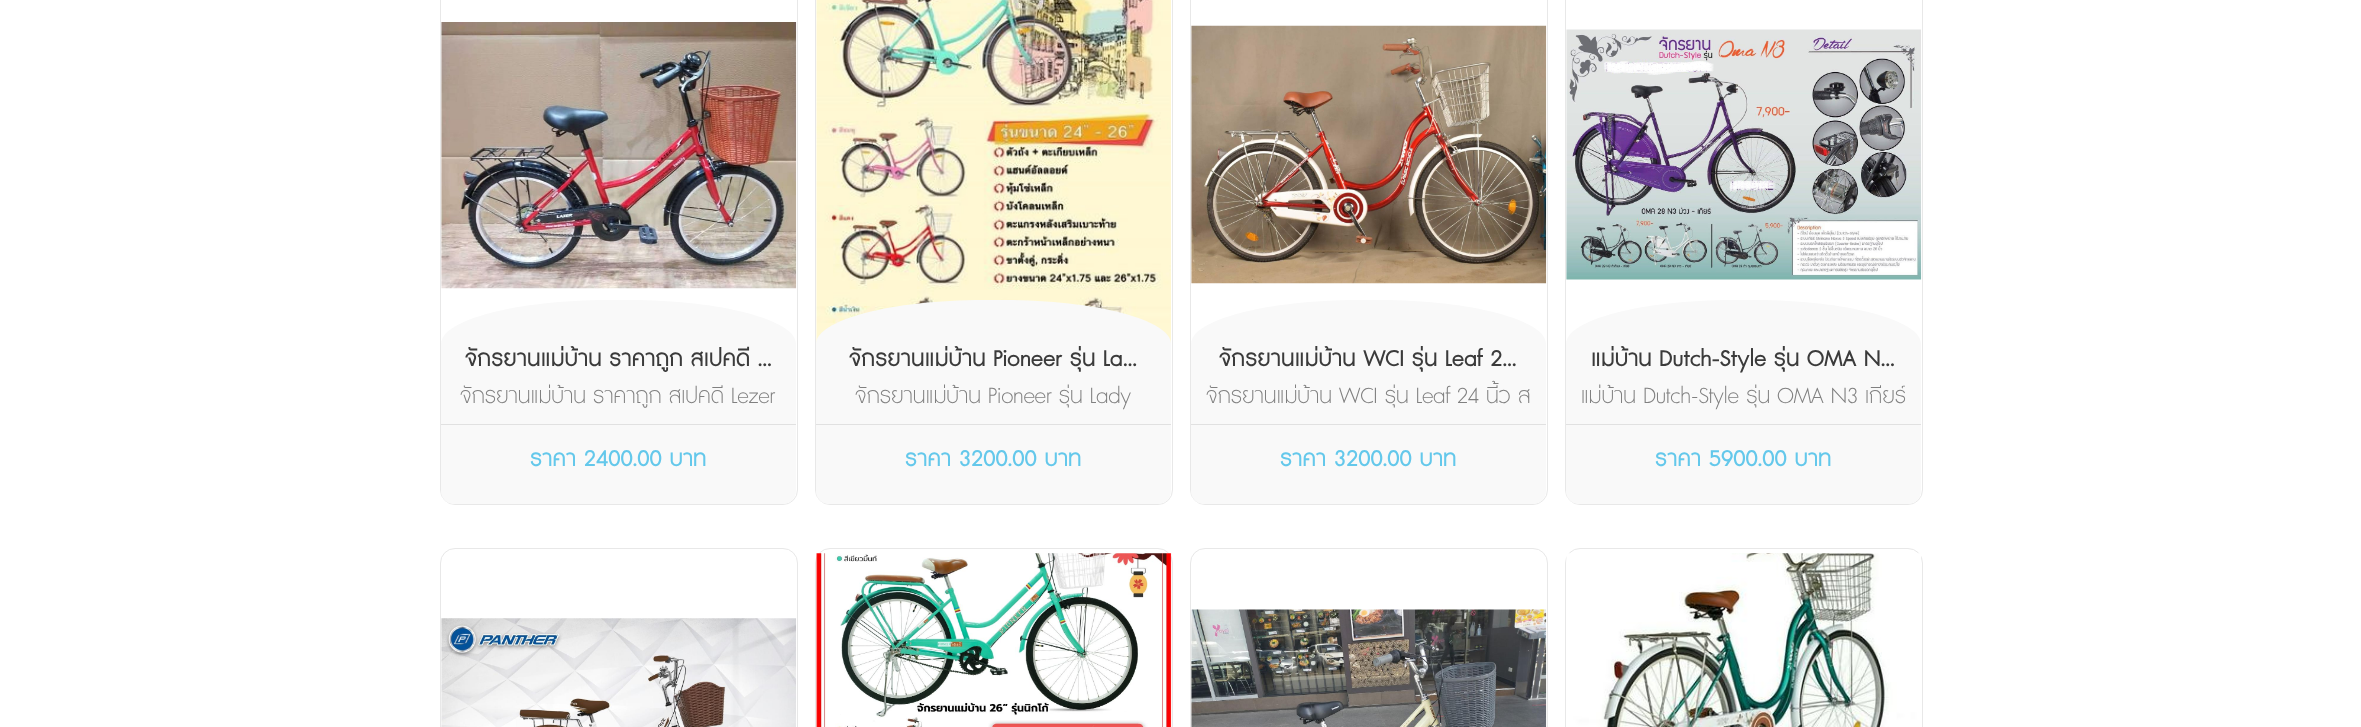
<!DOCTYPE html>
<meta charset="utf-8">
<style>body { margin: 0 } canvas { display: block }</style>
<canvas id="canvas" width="2361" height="727"></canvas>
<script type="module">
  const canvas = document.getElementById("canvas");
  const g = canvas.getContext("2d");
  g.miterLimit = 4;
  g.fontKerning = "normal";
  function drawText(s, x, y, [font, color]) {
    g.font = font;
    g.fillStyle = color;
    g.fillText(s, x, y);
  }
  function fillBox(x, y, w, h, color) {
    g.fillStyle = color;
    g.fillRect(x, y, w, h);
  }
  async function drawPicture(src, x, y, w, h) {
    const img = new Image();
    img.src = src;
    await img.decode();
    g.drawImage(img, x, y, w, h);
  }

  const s1 = ["30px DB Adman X", "#3B3B3B"];
  const s2 = ["300 28.75px DB Adman X", "#808080"];
  const s3 = ["30px DB Adman X", "#64C8EB"];

  fillBox(0, 0, 2361, 727, "#FFFFFF");
  g.beginPath();
  g.roundRect(440.5, -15.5, 357, 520, 14.5);
  g.strokeStyle = "#E8E8E8";
  g.stroke();
  await drawPicture("pic1.png", 441, 22, 356, 267);
  g.fillStyle = "#F9F9F9";
  g.beginPath();
  g.roundRect(441, 344, 355, 160, [0, 0, 13, 13]);
  g.fill();
  g.beginPath();
  g.moveTo(609, 300);
  g.lineTo(629, 300);
  g.bezierCurveTo(721, 300, 796, 320, 796, 344);
  g.lineTo(441, 344);
  g.bezierCurveTo(441, 320, 516, 300, 609, 300);
  g.closePath();
  g.fill();
  drawText("จักรยานแม่บ้าน ราคาถูก สเปคดี ...", 465, 366, s1);
  g.save();
  g.beginPath();
  g.rect(454, 380, 330, 31);
  g.clip();
  drawText("จักรยานแม่บ้าน ราคาถูก สเปคดี Lezer", 460, 403, s2);
  g.restore();
  fillBox(441, 424, 355, 1, "#E1E1E1");
  drawText("ราคา 2400.00 บาท", 530, 466, s3);
  g.beginPath();
  g.roundRect(815.5, -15.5, 357, 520, 14.5);
  g.stroke();
  await drawPicture("pic2.png", 816, 0, 355, 344);
  g.fillStyle = "#F9F9F9";
  g.beginPath();
  g.roundRect(816, 344, 355, 160, [0, 0, 13, 13]);
  g.fill();
  g.beginPath();
  g.moveTo(984, 300);
  g.lineTo(1004, 300);
  g.bezierCurveTo(1096, 300, 1171, 320, 1171, 344);
  g.lineTo(816, 344);
  g.bezierCurveTo(816, 320, 891, 300, 984, 300);
  g.closePath();
  g.fill();
  drawText("จักรยานแม่บ้าน Pioneer รุ่น La...", 849, 366, s1);
  drawText("จักรยานแม่บ้าน Pioneer รุ่น Lady", 855, 403, s2);
  fillBox(816, 424, 355, 1, "#E1E1E1");
  drawText("ราคา 3200.00 บาท", 905, 466, s3);
  g.beginPath();
  g.roundRect(1190.5, -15.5, 357, 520, 14.5);
  g.stroke();
  await drawPicture("pic3.png", 1191, 25, 356, 259);
  g.fillStyle = "#F9F9F9";
  g.beginPath();
  g.roundRect(1191, 344, 355, 160, [0, 0, 13, 13]);
  g.fill();
  g.beginPath();
  g.moveTo(1359, 300);
  g.lineTo(1379, 300);
  g.bezierCurveTo(1471, 300, 1546, 320, 1546, 344);
  g.lineTo(1191, 344);
  g.bezierCurveTo(1191, 320, 1266, 300, 1359, 300);
  g.closePath();
  g.fill();
  drawText("จักรยานแม่บ้าน WCI รุ่น Leaf 2...", 1219, 366, s1);
  g.save();
  g.beginPath();
  g.rect(1204, 380, 330, 31);
  g.clip();
  drawText("จักรยานแม่บ้าน WCI รุ่น Leaf 24 นี้ว ส", 1206, 403, s2);
  g.restore();
  fillBox(1191, 424, 355, 1, "#E1E1E1");
  drawText("ราคา 3200.00 บาท", 1280, 466, s3);
  g.beginPath();
  g.roundRect(1565.5, -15.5, 357, 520, 14.5);
  g.stroke();
  await drawPicture("pic4.png", 1566, 29, 356, 251);
  g.fillStyle = "#F9F9F9";
  g.beginPath();
  g.roundRect(1566, 344, 355, 160, [0, 0, 13, 13]);
  g.fill();
  g.beginPath();
  g.moveTo(1734, 300);
  g.lineTo(1754, 300);
  g.bezierCurveTo(1846, 300, 1921, 320, 1921, 344);
  g.lineTo(1566, 344);
  g.bezierCurveTo(1566, 320, 1641, 300, 1734, 300);
  g.closePath();
  g.fill();
  drawText("แม่บ้าน Dutch-Style รุ่น OMA N...", 1591, 366, s1);
  drawText("แม่บ้าน Dutch-Style รุ่น OMA N3 เกียร์", 1581, 403, s2);
  fillBox(1566, 424, 355, 1, "#E1E1E1");
  drawText("ราคา 5900.00 บาท", 1655, 466, s3);
  g.beginPath();
  g.roundRect(440.5, 548.5, 357, 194, 14.5);
  g.stroke();
  await drawPicture("pic5.png", 441, 618, 356, 109);
  g.beginPath();
  g.roundRect(815.5, 548.5, 357, 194, 14.5);
  g.stroke();
  await drawPicture("pic6.png", 816, 553, 356, 174);
  g.beginPath();
  g.roundRect(1190.5, 548.5, 357, 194, 14.5);
  g.stroke();
  await drawPicture("pic7.png", 1191, 609, 356, 118);
  g.beginPath();
  g.roundRect(1565.5, 548.5, 357, 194, 14.5);
  g.stroke();
  await drawPicture("pic8.png", 1566, 553, 355, 174);
</script>
